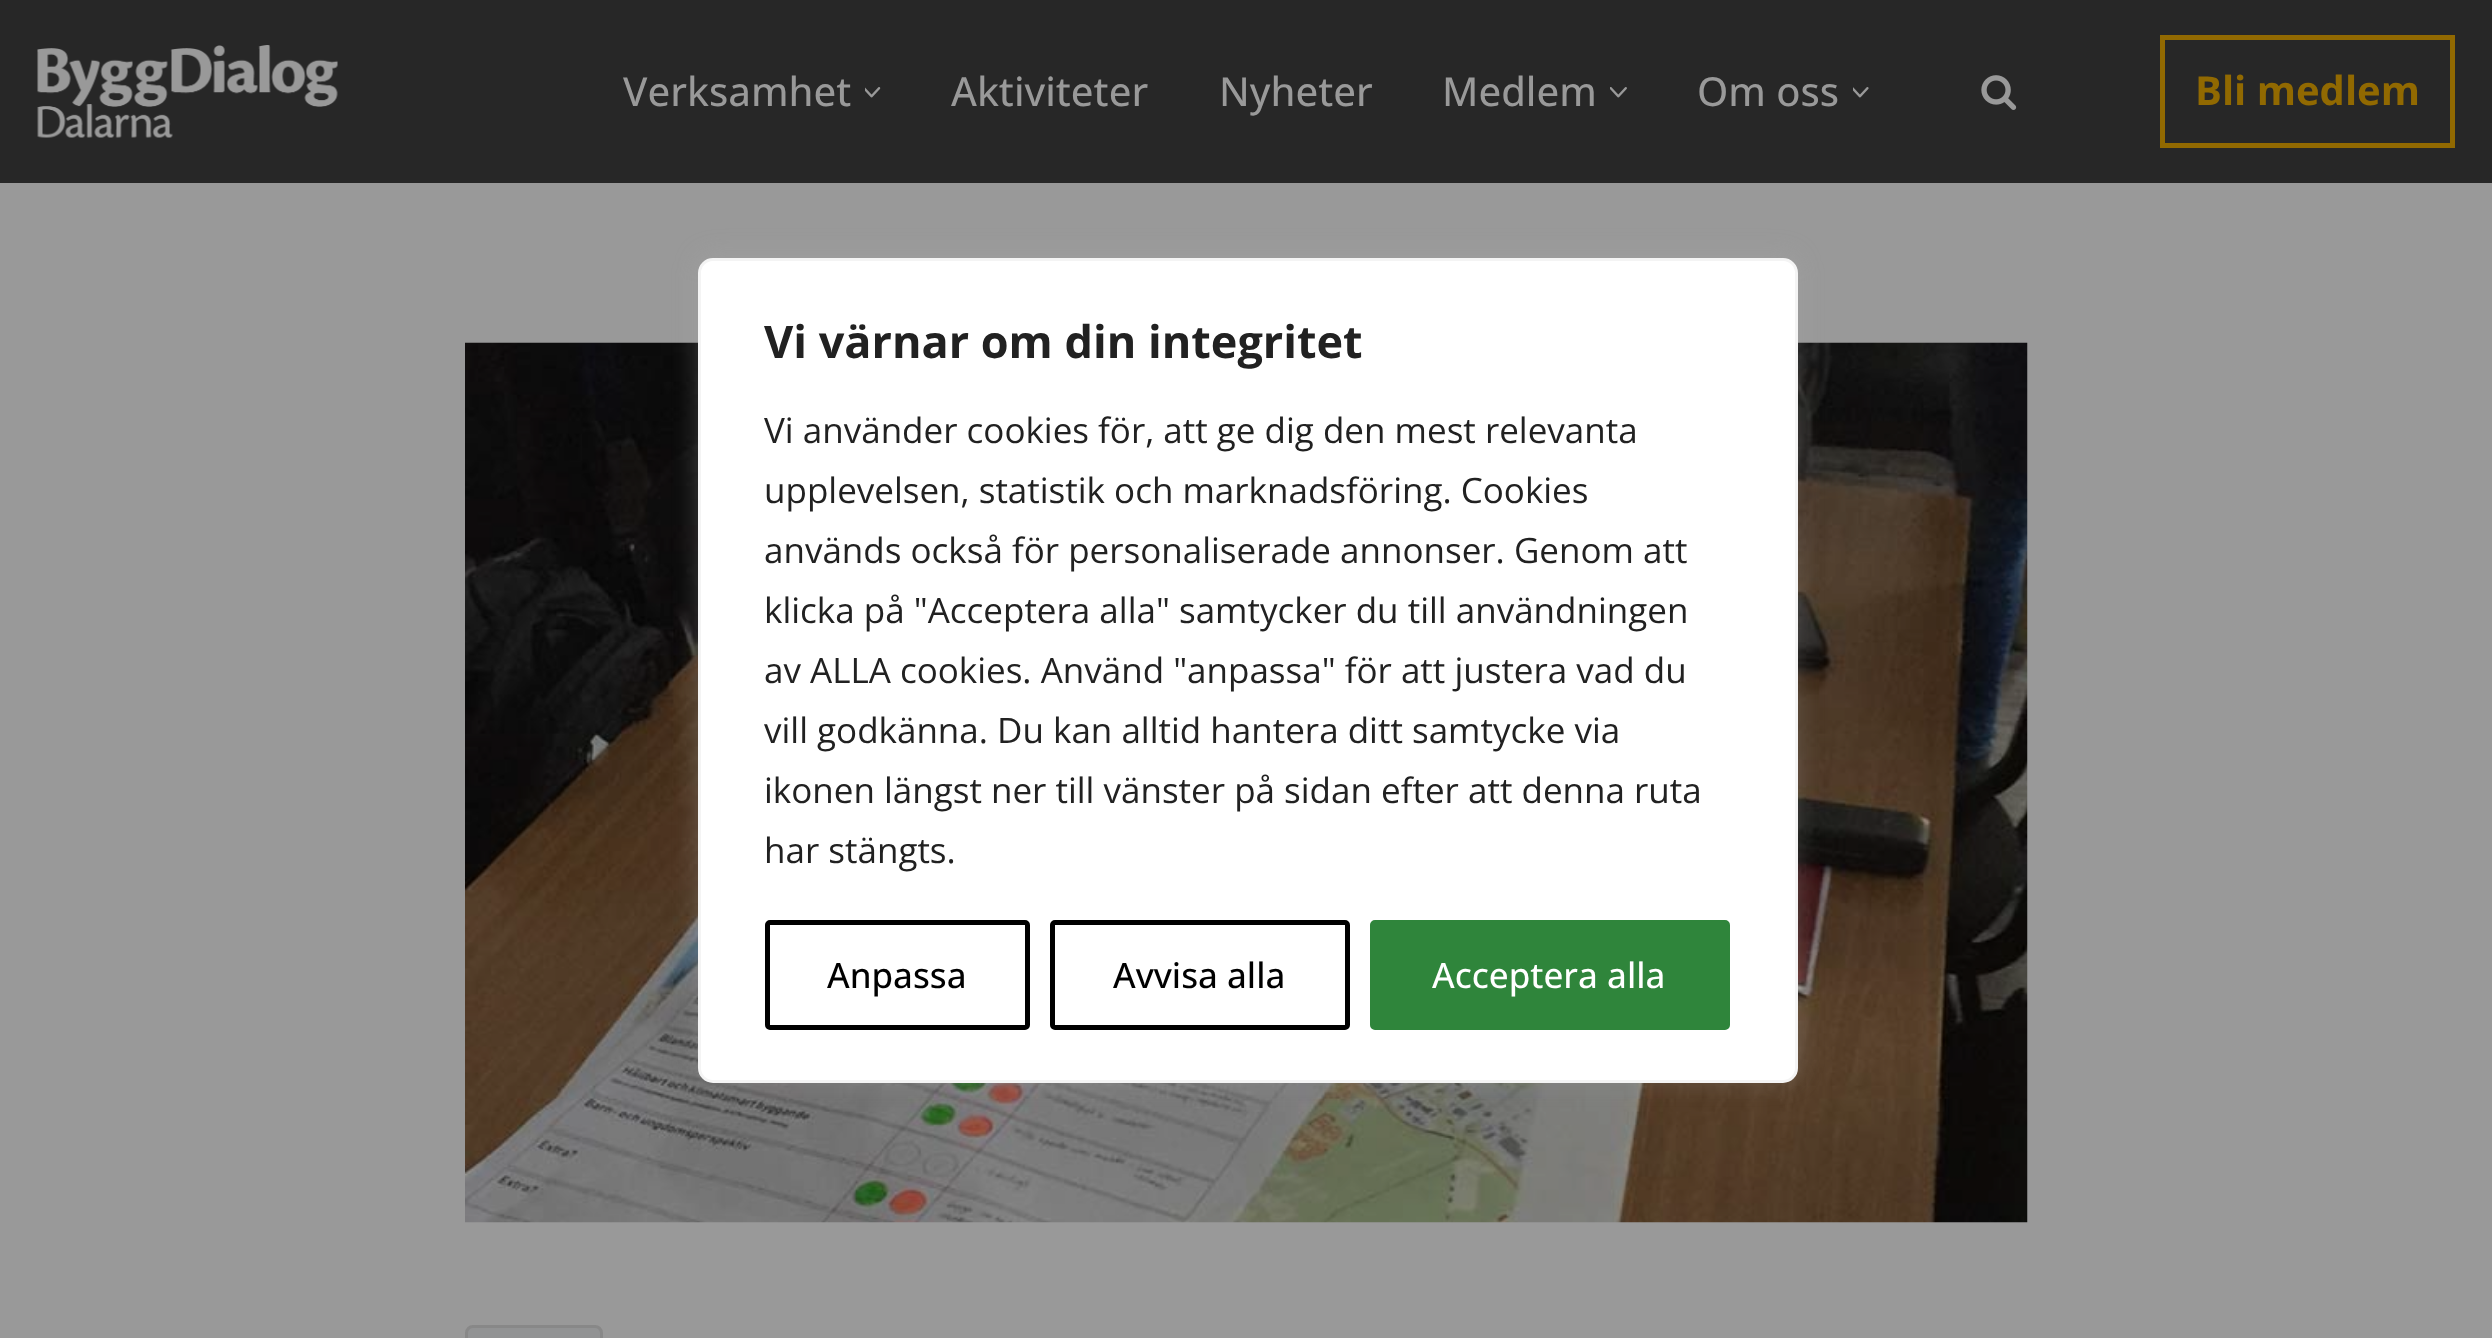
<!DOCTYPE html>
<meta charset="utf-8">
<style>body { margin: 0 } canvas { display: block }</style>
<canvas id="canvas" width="2492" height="1338"></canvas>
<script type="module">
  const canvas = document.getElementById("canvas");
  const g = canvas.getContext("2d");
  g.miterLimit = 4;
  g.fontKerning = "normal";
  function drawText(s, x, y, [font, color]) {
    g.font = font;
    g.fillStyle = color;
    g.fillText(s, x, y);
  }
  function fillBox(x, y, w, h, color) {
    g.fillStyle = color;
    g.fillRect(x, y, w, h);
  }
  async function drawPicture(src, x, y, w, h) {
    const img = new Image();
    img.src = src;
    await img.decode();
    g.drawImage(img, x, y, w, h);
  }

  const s1 = ["500 40px Open Sans", "#999999"];
  const s2 = ["bold 40px Open Sans", "#916901"];
  const s3 = ["bold 45px Open Sans", "#212121"];
  const s4 = ["35px Open Sans", "#212121"];
  const s5 = ["500 35px Open Sans", "#000000"];
  const s6 = ["500 35px Open Sans", "#FFFFFF"];

  fillBox(0, 0, 2492, 1338, "#999999");
  fillBox(0, 0, 2492, 183, "#272727");
  await drawPicture("pic1.png", 37, 45, 301, 93);
  drawText("Verksamhet", 623, 106, s1);
  await drawPicture("pic2.png", 865, 87, 16, 11);
  drawText("Aktiviteter", 951, 106, s1);
  drawText("Nyheter", 1219, 106, s1);
  drawText("Medlem", 1442, 106, s1);
  await drawPicture("pic3.png", 1610, 87, 17, 11);
  drawText("Om oss", 1697, 106, s1);
  await drawPicture("pic4.png", 1853, 87, 16, 11);
  await drawPicture("pic5.png", 1981, 75, 36, 35);
  g.beginPath();
  g.rect(2162.5, 37.5, 290, 108);
  g.strokeStyle = "#916901";
  g.lineWidth = 5;
  g.stroke();
  drawText("Bli medlem", 2195, 105, s2);
  await drawPicture("pic6.png", 465, 342, 1563, 881);
  g.fillStyle = "#929394";
  g.beginPath();
  g.roundRect(466.5, 1326.5, 135, 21, 6.5);
  g.fill();
  g.strokeStyle = "#888888";
  g.lineWidth = 3;
  g.stroke();
  g.fillStyle = "rgba(172, 171, 171, 0.3)";
  g.filter = "blur(12.5px)";
  g.beginPath();
  g.roundRect(698, 255, 1100, 825, 15);
  g.fill();
  g.filter = "none";
  g.fillStyle = "#FFFFFF";
  g.beginPath();
  g.roundRect(699.5, 259.5, 1097, 822, 13.5);
  g.fill();
  g.strokeStyle = "#F4F4F4";
  g.stroke();
  drawText("Vi värnar om din integritet", 764, 358, s3);
  drawText("Vi använder cookies för, att ge dig den mest relevanta", 764, 443, s4);
  drawText("upplevelsen, statistik och marknadsföring. Cookies", 764, 503, s4);
  drawText("används också för personaliserade annonser. Genom att", 764, 563, s4);
  drawText("klicka på \"Acceptera alla\" samtycker du till användningen", 764, 623, s4);
  drawText("av ALLA cookies. Använd \"anpassa\" för att justera vad du", 764, 683, s4);
  drawText("vill godkänna. Du kan alltid hantera ditt samtycke via", 764, 743, s4);
  drawText("ikonen längst ner till vänster på sidan efter att denna ruta", 764, 803, s4);
  drawText("har stängts.", 764, 863, s4);
  g.beginPath();
  g.roundRect(767.5, 922.5, 260, 105, 2.5);
  g.strokeStyle = "#000000";
  g.lineWidth = 5;
  g.stroke();
  drawText("Anpassa", 827, 988, s5);
  g.beginPath();
  g.roundRect(1052.5, 922.5, 295, 105, 2.5);
  g.stroke();
  drawText("Avvisa alla", 1113, 988, s5);
  g.fillStyle = "#2F853B";
  g.beginPath();
  g.roundRect(1372.5, 922.5, 355, 105, 2.5);
  g.fill();
  g.strokeStyle = "#2F853B";
  g.stroke();
  drawText("Acceptera alla", 1432, 988, s6);
</script>
